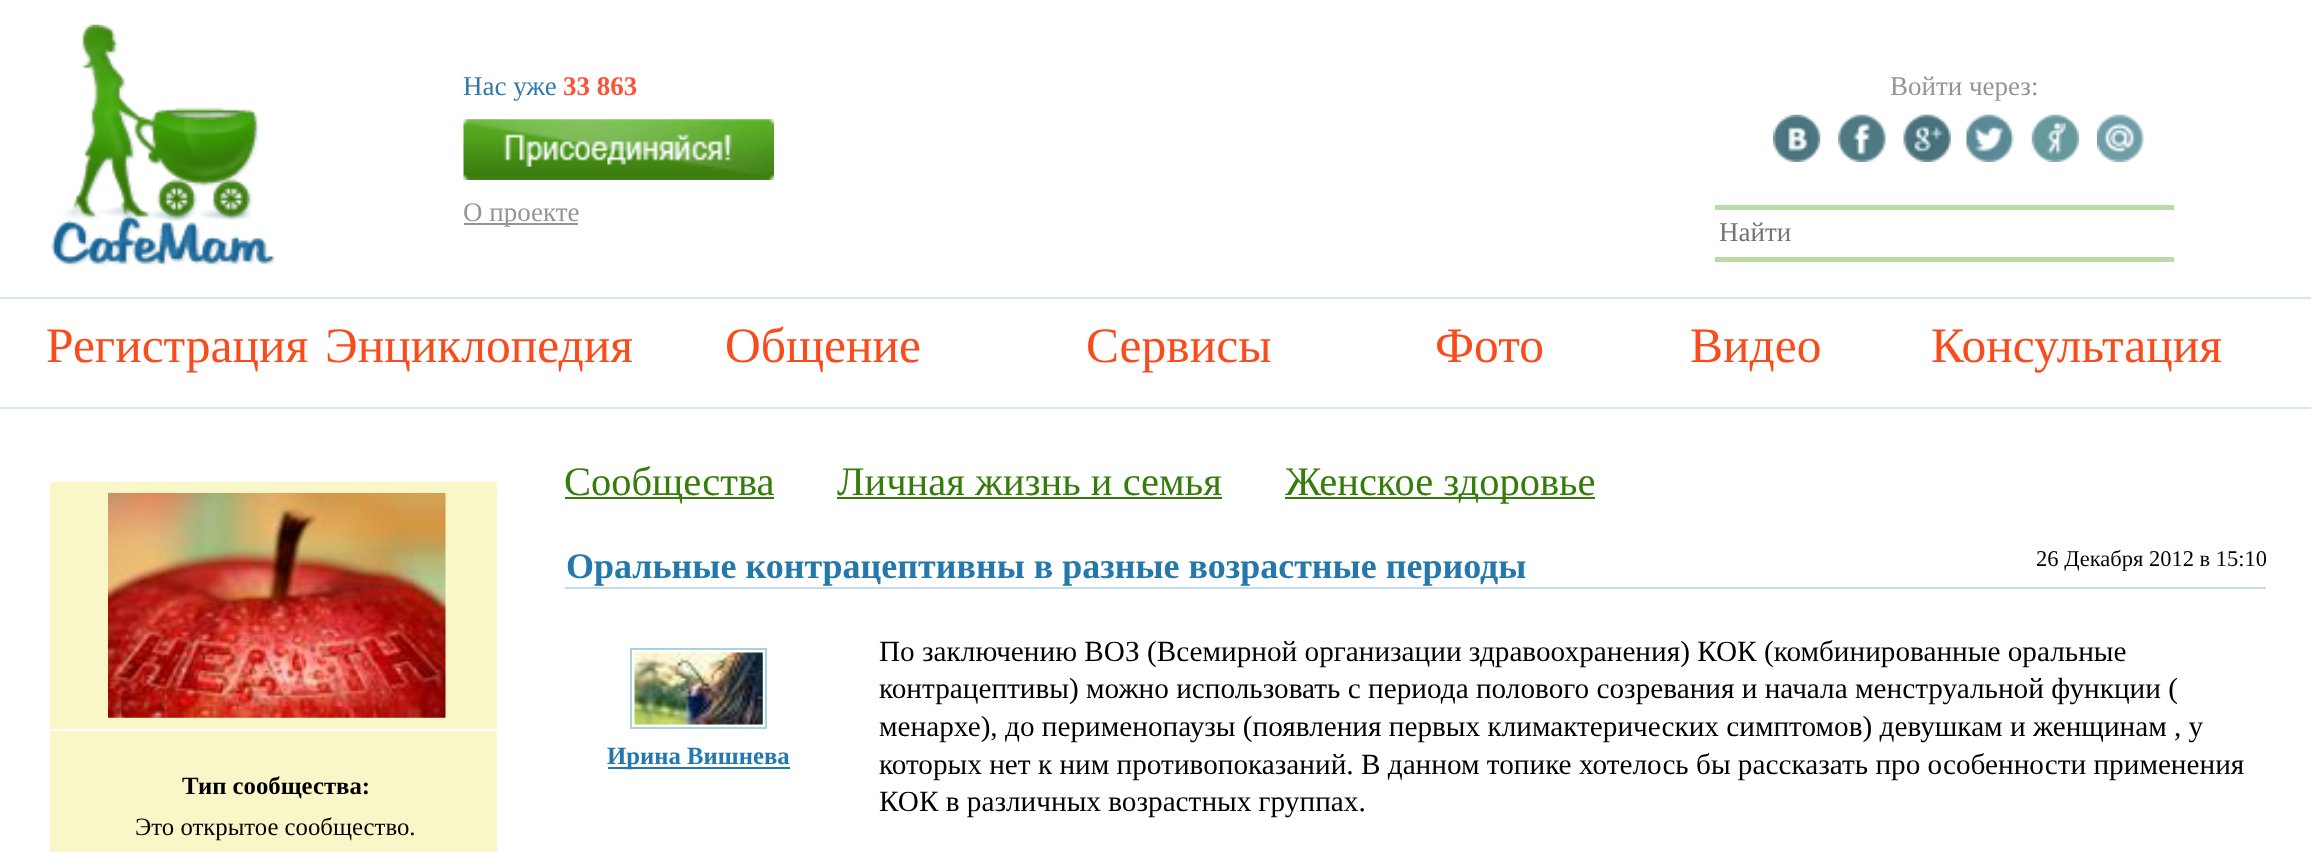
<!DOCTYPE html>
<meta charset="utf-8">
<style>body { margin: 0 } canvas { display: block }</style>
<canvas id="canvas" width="2311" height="852"></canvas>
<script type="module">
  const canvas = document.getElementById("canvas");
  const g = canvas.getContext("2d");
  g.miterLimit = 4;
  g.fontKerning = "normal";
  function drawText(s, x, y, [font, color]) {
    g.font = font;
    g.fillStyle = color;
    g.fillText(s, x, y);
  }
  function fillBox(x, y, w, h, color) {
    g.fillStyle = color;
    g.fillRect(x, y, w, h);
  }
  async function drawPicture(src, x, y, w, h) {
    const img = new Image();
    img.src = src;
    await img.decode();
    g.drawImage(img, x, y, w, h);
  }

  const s1 = ["27px Liberation Serif", "#307AA9"];
  const s2 = ["bold 27px Liberation Serif", "#F95438"];
  const s3 = ["27px Liberation Serif", "#959595"];
  const s4 = ["27px Liberation Serif", "#757575"];
  const s5 = ["49.5px Liberation Serif", "#F94B1B"];
  const s6 = ["bold 24.75px Liberation Serif", "#000000"];
  const s7 = ["24.75px Liberation Serif", "#000000"];
  const s8 = ["40.5px Liberation Serif", "#367C0A"];
  const s9 = ["bold 36px Liberation Serif", "#2478AC"];
  const s10 = ["22.5px Liberation Serif", "#000000"];
  const s11 = ["bold 24.75px Liberation Serif", "#2478AC"];
  const s12 = ["29.25px Liberation Serif", "#000000"];

  fillBox(0, 0, 2311, 852, "#FFFFFF");
  await drawPicture("pic1.png", 51, 24, 224, 243);
  drawText("Нас уже", 463, 95, s1);
  drawText("33 863", 563, 95, s2);
  await drawPicture("pic2.png", 463, 119, 311, 61);
  fillBox(464, 223, 114, 2, "#959595");
  drawText("О проекте", 463, 221, s3);
  drawText("Войти через:", 1890, 95, s3);
  await drawPicture("pic3.png", 1773, 114, 48, 48);
  await drawPicture("pic4.png", 1838, 114, 48, 48);
  await drawPicture("pic5.png", 1903, 114, 48, 48);
  await drawPicture("pic6.png", 1966, 114, 48, 48);
  await drawPicture("pic7.png", 2031, 114, 48, 48);
  await drawPicture("pic8.png", 2097, 114, 48, 48);
  fillBox(1715, 205, 459, 5, "#BADBA6");
  fillBox(1715, 257, 459, 5, "#BADBA6");
  drawText("Найти", 1719, 241, s4);
  fillBox(0, 297, 2311, 2, "#D3E9F1");
  fillBox(0, 407, 2311, 2, "#D3E9F1");
  drawText("Регистрация", 46, 362, s5);
  drawText("Энциклопедия", 325, 362, s5);
  drawText("Общение", 725, 362, s5);
  drawText("Сервисы", 1086, 362, s5);
  drawText("Фото", 1435, 362, s5);
  drawText("Видео", 1690, 362, s5);
  drawText("Консультация", 1931, 362, s5);
  fillBox(50, 482, 447, 370, "#F9F6C7");
  fillBox(50, 729, 447, 2, "#FFFFFF");
  await drawPicture("pic9.png", 108, 492, 338, 226);
  drawText("Тип сообщества:", 182, 794, s6);
  drawText("Это открытое сообщество.", 135, 835, s7);
  fillBox(565, 497, 209, 2, "#367C0A");
  drawText("Сообщества", 564, 495, s8);
  drawText("Личная жизнь и семья", 837, 495, s8);
  fillBox(837, 497, 385, 2, "#367C0A");
  fillBox(1285, 497, 310, 2, "#367C0A");
  drawText("Женское здоровье", 1285, 495, s8);
  drawText("Оральные контрацептивны в разные возрастные периоды", 566, 578, s9);
  drawText("26 Декабря 2012 в 15:10", 2036, 566, s10);
  fillBox(565, 587, 1701, 2, "#C4DCEC");
  g.strokeStyle = "#A7D2E0";
  g.lineWidth = 2;
  g.strokeRect(631, 649, 135, 79);
  await drawPicture("pic10.png", 634, 652, 129, 73);
  fillBox(608, 767, 182, 2, "#2478AC");
  drawText("Ирина Вишнева", 607, 764, s11);
  drawText("По заключению ВОЗ (Всемирной организации здравоохранения) КОК (комбинированные оральные", 879, 661, s12);
  drawText("контрацептивы) можно использовать с периода полового созревания и начала менструальной функции (", 879, 698, s12);
  drawText("менархе), до перименопаузы (появления первых климактерических симптомов) девушкам и женщинам , у", 879, 736, s12);
  drawText("которых нет к ним противопоказаний. В данном топике хотелось бы рассказать про особенности применения", 879, 774, s12);
  drawText("КОК в различных возрастных группах.", 879, 811, s12);
</script>
